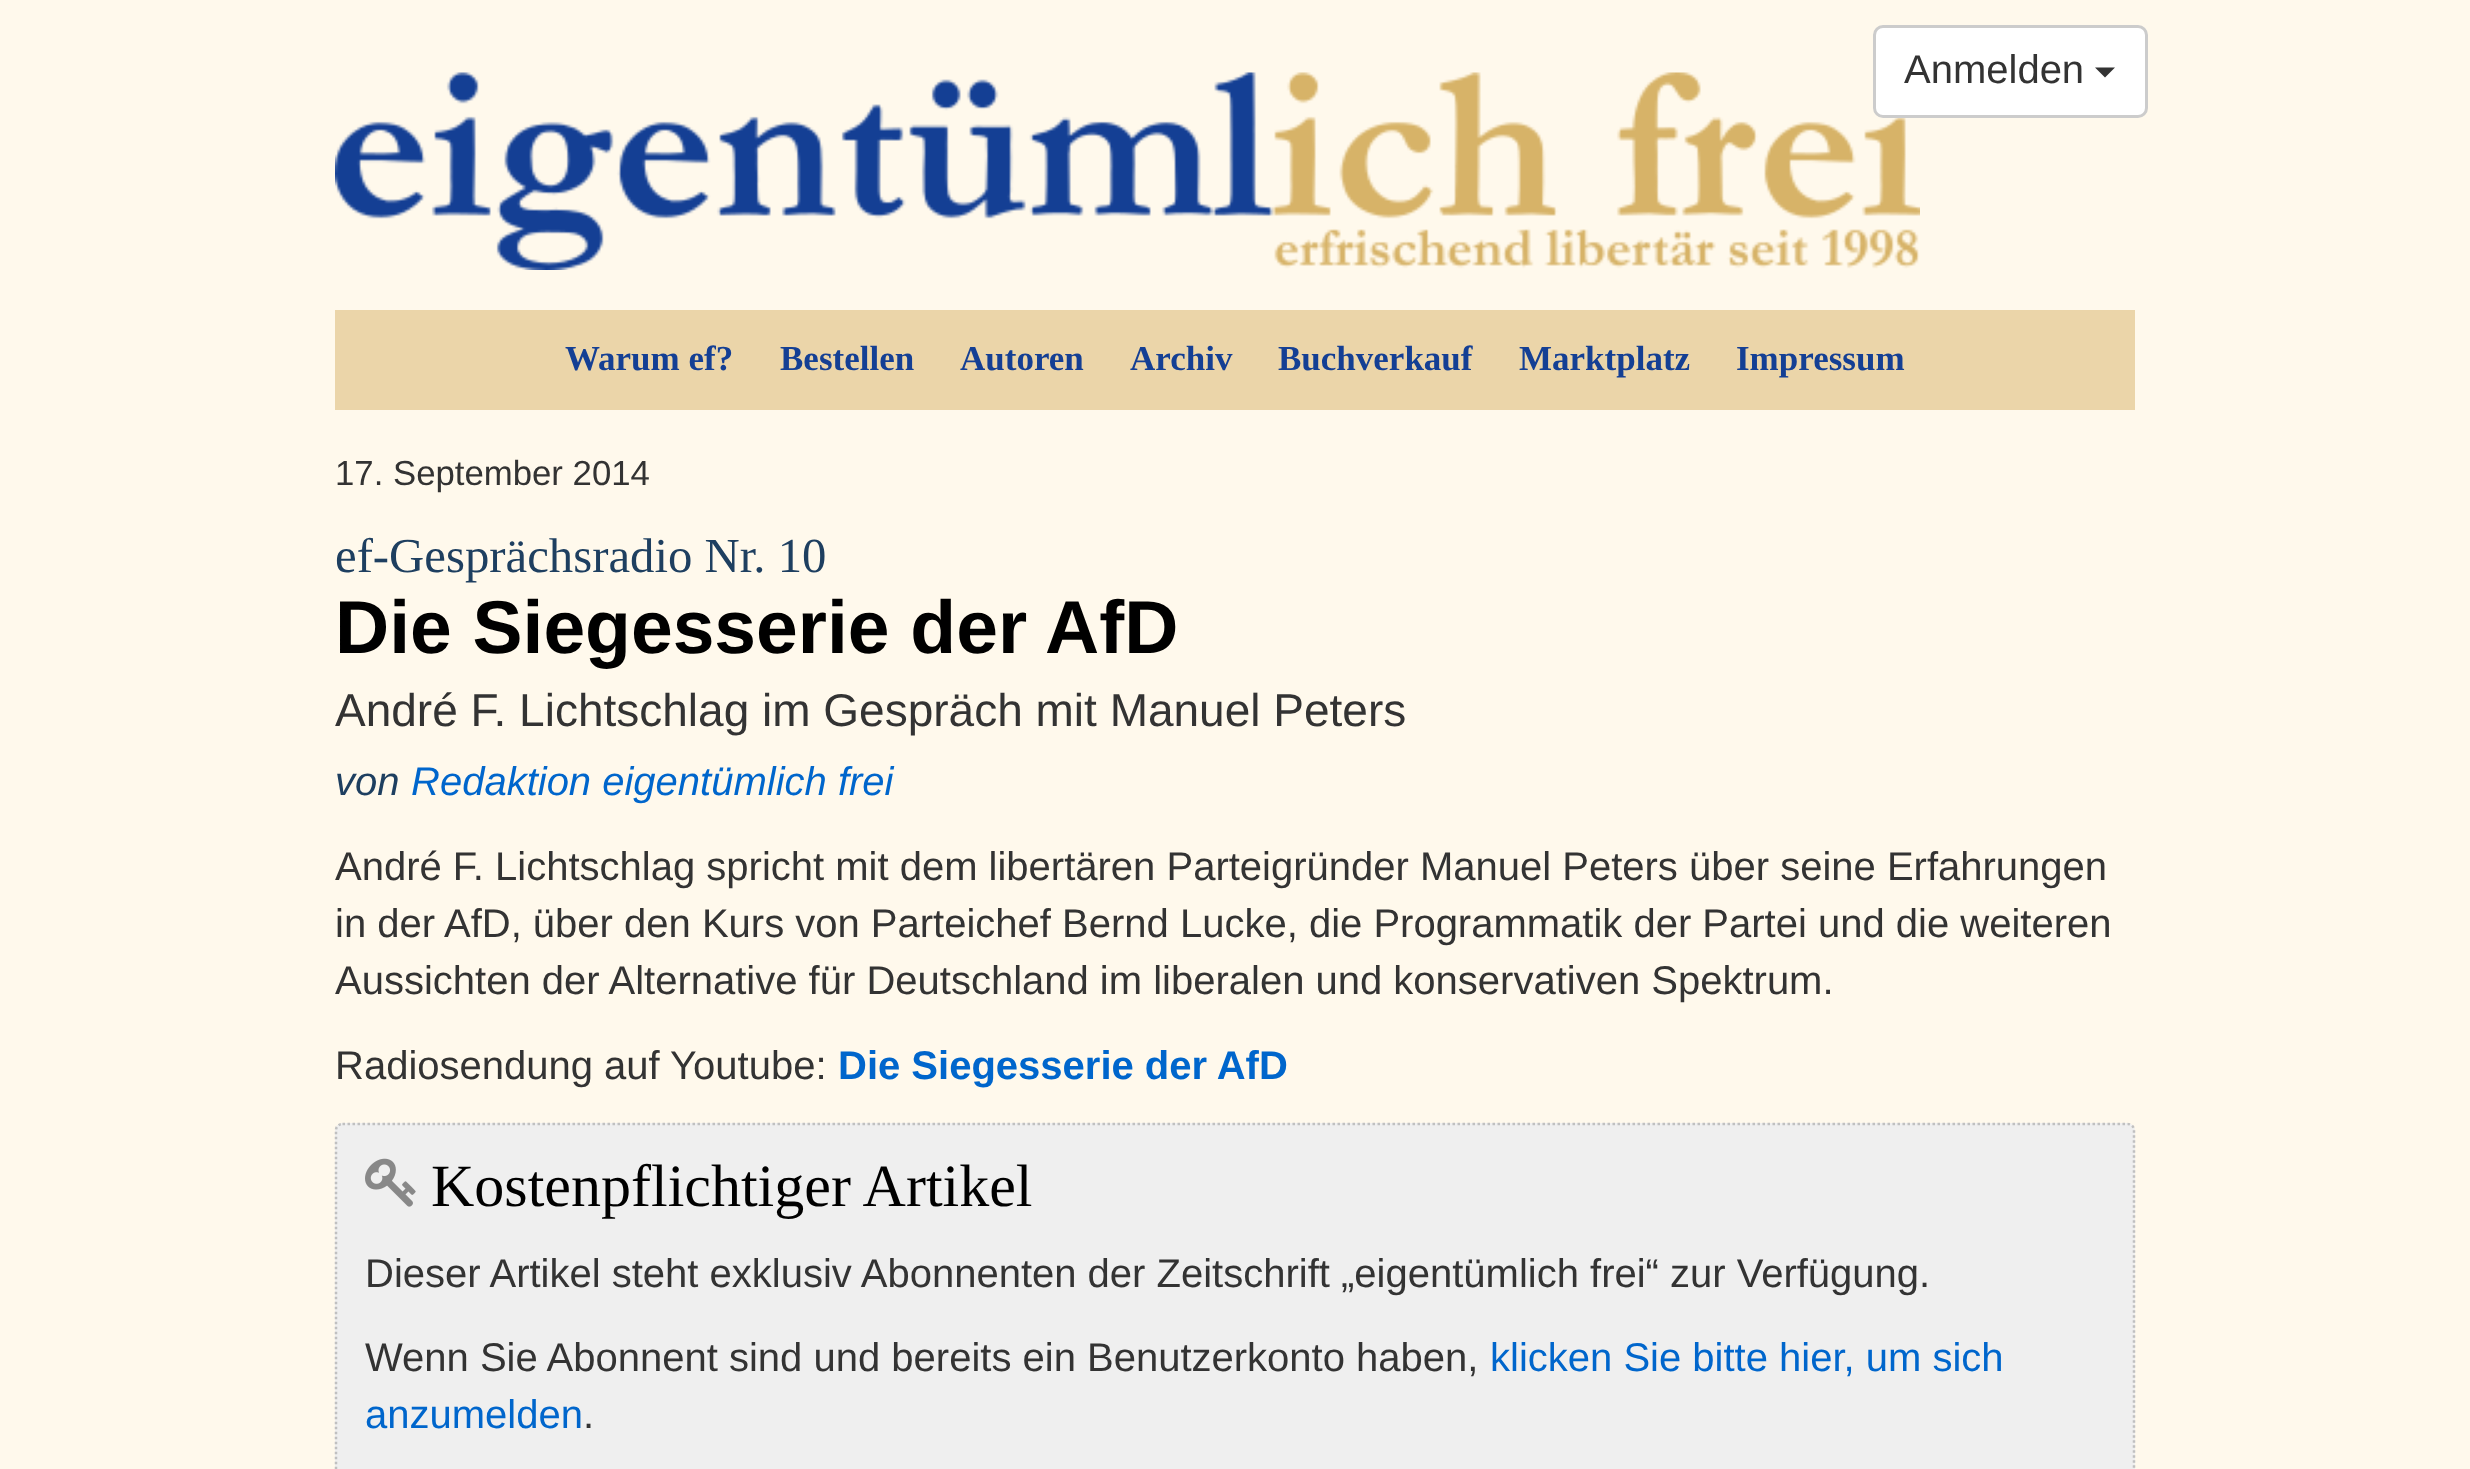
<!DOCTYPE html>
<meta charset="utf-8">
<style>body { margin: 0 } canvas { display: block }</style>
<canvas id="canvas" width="2470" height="1469"></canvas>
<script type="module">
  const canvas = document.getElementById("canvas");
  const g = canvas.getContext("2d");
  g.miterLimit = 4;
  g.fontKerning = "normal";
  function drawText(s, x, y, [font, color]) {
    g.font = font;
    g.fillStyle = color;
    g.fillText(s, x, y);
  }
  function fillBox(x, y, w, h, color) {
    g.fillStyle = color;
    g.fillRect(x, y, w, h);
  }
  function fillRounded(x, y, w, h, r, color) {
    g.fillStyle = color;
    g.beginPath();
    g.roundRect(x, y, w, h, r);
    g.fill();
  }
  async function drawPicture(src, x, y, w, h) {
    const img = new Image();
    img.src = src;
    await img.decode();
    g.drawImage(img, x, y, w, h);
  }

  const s1 = ["40px Liberation Sans", "#333333"];
  const s2 = ["bold 35px Liberation Serif", "#143F94"];
  const s3 = ["34.75px Liberation Sans", "#333333"];
  const s4 = ["48.75px Liberation Serif", "#1E3F60"];
  const s5 = ["bold 75px Liberation Sans", "#000000"];
  const s6 = ["46px Liberation Sans", "#333333"];
  const s7 = ["italic 40px Liberation Sans", "#1E3F60"];
  const s8 = ["italic 40px Liberation Sans", "#0066CC"];
  const s9 = ["bold 40px Liberation Sans", "#0066CC"];
  const s10 = ["60px Liberation Serif", "#000000"];
  const s11 = ["40px Liberation Sans", "#0066CC"];

  fillBox(0, 0, 2470, 1469, "#FFF9EC");
  await drawPicture("pic1.png", 335, 72, 1585, 198);
  g.fillStyle = "#FFFFFF";
  g.beginPath();
  g.roundRect(1874.5, 26.5, 272, 90, 8.5);
  g.fill();
  g.strokeStyle = "#CCCCCC";
  g.lineWidth = 3;
  g.stroke();
  drawText("Anmelden", 1904, 83, s1);
  g.beginPath();
  g.moveTo(2095, 67.5);
  g.lineTo(2115, 67.5);
  g.lineTo(2105, 77.5);
  g.closePath();
  g.fill();
  fillBox(335, 310, 1800, 100, "#EBD5A9");
  drawText("Warum ef?", 565, 370, s2);
  drawText("Bestellen", 780, 370, s2);
  drawText("Autoren", 960, 370, s2);
  drawText("Archiv", 1130, 370, s2);
  drawText("Buchverkauf", 1278, 370, s2);
  drawText("Marktplatz", 1519, 370, s2);
  drawText("Impressum", 1736, 370, s2);
  drawText("17. September 2014", 335, 485, s3);
  drawText("ef-Gesprächsradio Nr. 10", 335, 572, s4);
  drawText("Die Siegesserie der AfD", 335, 653, s5);
  drawText("André F. Lichtschlag im Gespräch mit Manuel Peters", 335, 726, s6);
  drawText("von", 335, 795, s7);
  drawText("Redaktion eigentümlich frei", 411, 795, s8);
  drawText("André F. Lichtschlag spricht mit dem libertären Parteigründer Manuel Peters über seine Erfahrungen", 335, 880, s1);
  drawText("in der AfD, über den Kurs von Parteichef Bernd Lucke, die Programmatik der Partei und die weiteren", 335, 937, s1);
  drawText("Aussichten der Alternative für Deutschland im liberalen und konservativen Spektrum.", 335, 994, s1);
  drawText("Radiosendung auf Youtube:", 335, 1079, s1);
  drawText("Die Siegesserie der AfD", 838, 1079, s9);
  fillRounded(335, 1123, 1800, 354, 8, "#EFEFEF");
  g.beginPath();
  g.moveTo(342.5, 1124);
  g.lineTo(2127.5, 1124);
  g.bezierCurveTo(2131, 1124, 2134, 1126.5, 2134, 1130);
  g.lineTo(2134, 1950);
  g.bezierCurveTo(2134, 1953.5, 2131, 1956, 2127.5, 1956);
  g.lineTo(342.5, 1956);
  g.bezierCurveTo(339, 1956, 336, 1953.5, 336, 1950);
  g.lineTo(336, 1130);
  g.bezierCurveTo(336, 1126.5, 339, 1124, 342.5, 1124);
  g.closePath();
  g.strokeStyle = "#C0C0C0";
  g.lineWidth = 2.5;
  g.setLineDash([2.5, 2.5]);
  g.stroke();
  await drawPicture("pic2.png", 365, 1158, 51, 49);
  drawText("Kostenpflichtiger Artikel", 431, 1206, s10);
  drawText("Dieser Artikel steht exklusiv Abonnenten der Zeitschrift „eigentümlich frei“ zur Verfügung.", 365, 1287, s1);
  drawText("Wenn Sie Abonnent sind und bereits ein Benutzerkonto haben,", 365, 1371, s1);
  drawText("klicken Sie bitte hier, um sich", 1490, 1371, s11);
  drawText("anzumelden", 365, 1428, s11);
  drawText(".", 583, 1428, s1);
</script>
